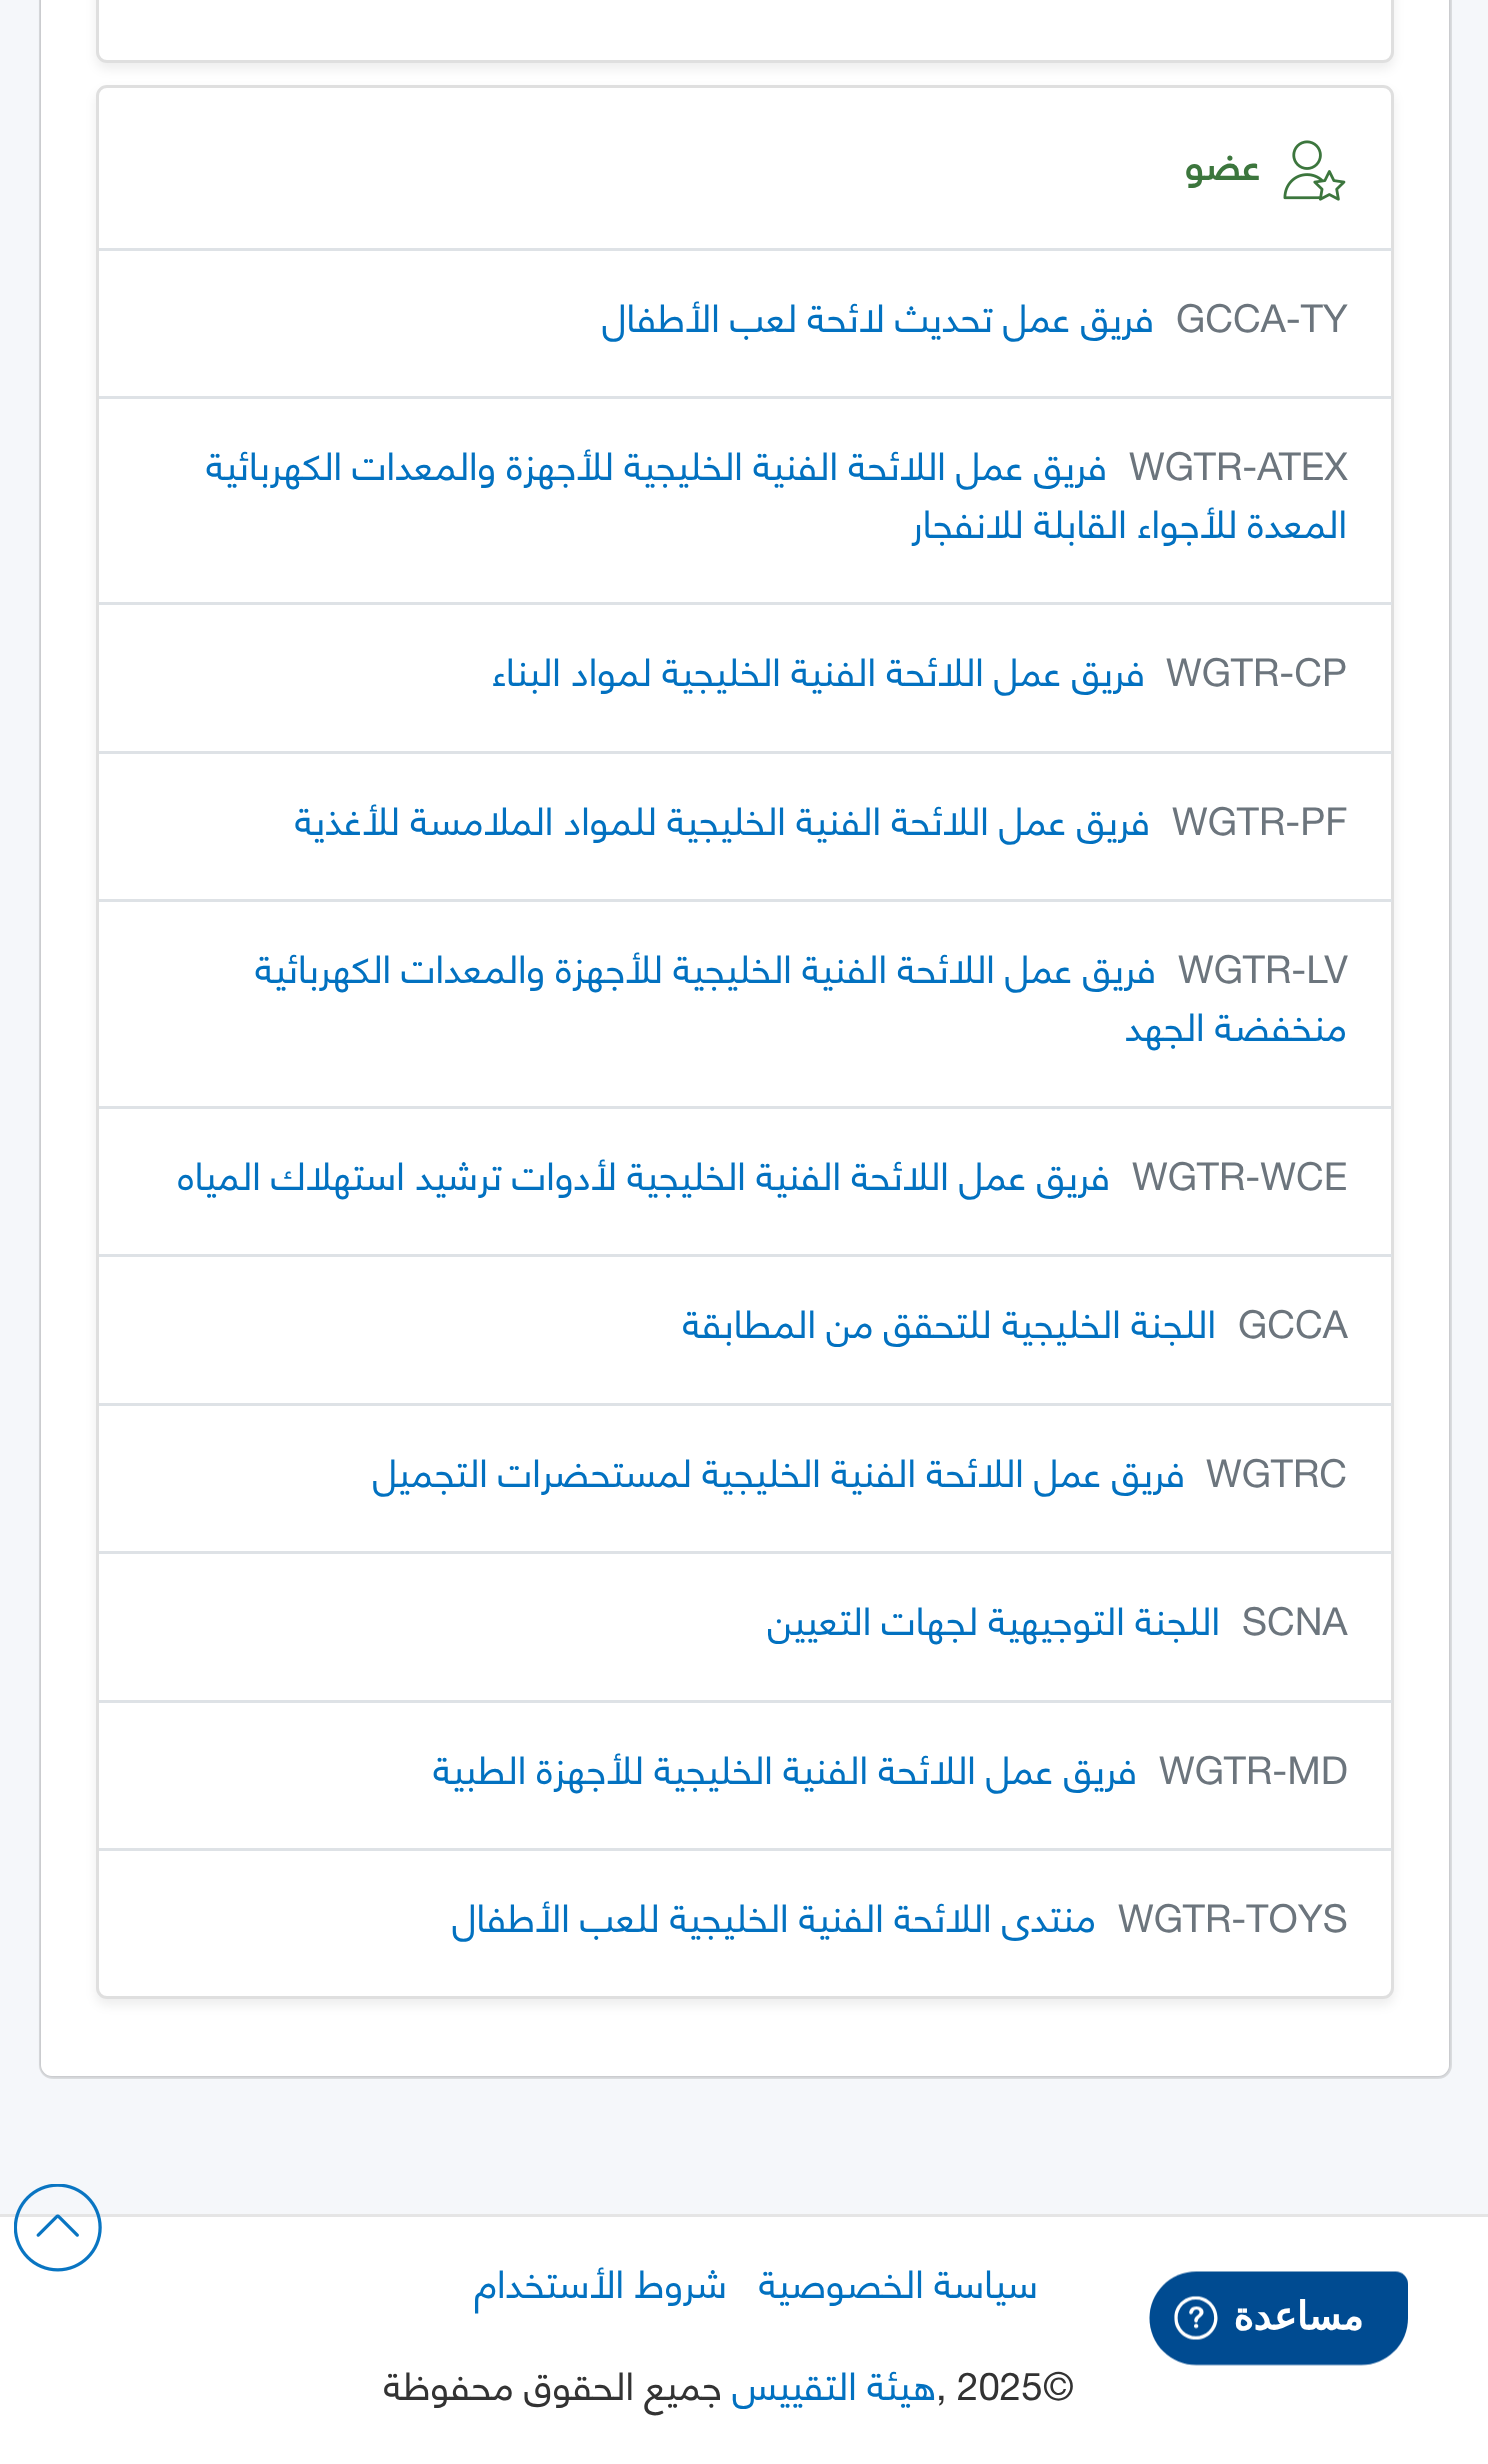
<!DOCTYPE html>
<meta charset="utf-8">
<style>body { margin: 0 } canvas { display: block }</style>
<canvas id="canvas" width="1488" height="2464"></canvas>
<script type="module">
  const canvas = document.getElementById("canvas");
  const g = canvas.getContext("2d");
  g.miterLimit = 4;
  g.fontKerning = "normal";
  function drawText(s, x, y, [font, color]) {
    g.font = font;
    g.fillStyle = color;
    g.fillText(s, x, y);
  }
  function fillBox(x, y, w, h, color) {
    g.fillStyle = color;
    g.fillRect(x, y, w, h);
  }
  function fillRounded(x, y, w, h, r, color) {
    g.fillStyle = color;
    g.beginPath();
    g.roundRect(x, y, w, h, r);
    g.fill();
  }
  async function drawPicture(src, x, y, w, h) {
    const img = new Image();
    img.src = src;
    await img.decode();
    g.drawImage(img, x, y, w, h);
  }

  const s1 = ["bold 38.5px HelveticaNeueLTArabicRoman", "#3C763D"];
  const s2 = ["38.5px HelveticaNeueLTArabicRoman", "#6C757D"];
  const s3 = ["38.5px HelveticaNeueLTArabicRoman", "#0271C0"];
  const s4 = ["38.5px HelveticaNeueLTArabicRoman", "#333333"];

  fillBox(0, 0, 1488, 2464, "#F5F7FA");
  g.fillStyle = "rgba(0, 0, 0, 0.2)";
  g.filter = "blur(1.5px)";
  g.beginPath();
  g.roundRect(41, -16, 1408, 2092, 11);
  g.fill();
  g.filter = "none";
  g.beginPath();
  g.roundRect(40.5, -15.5, 1410, 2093, 12.5);
  g.strokeStyle = "rgba(0, 0, 0, 0.1)";
  g.lineWidth = 3;
  g.stroke();
  fillRounded(41, -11, 1408, 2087, 11, "#FFFFFF");
  g.fillStyle = "rgba(0, 0, 0, 0.07)";
  g.filter = "blur(5.5px)";
  g.beginPath();
  g.roundRect(96, -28, 1298, 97, 11);
  g.fill();
  g.filter = "none";
  g.fillStyle = "#FFFFFF";
  g.beginPath();
  g.roundRect(97.5, -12.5, 1295, 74, 9.5);
  g.fill();
  g.strokeStyle = "#DFDFDF";
  g.stroke();
  g.fillStyle = "rgba(0, 0, 0, 0.07)";
  g.filter = "blur(5.5px)";
  g.beginPath();
  g.roundRect(96, 91, 1298, 1914, 11);
  g.fill();
  g.filter = "none";
  g.fillStyle = "#FFFFFF";
  g.beginPath();
  g.roundRect(97.5, 86.5, 1295, 1911, 9.5);
  g.fill();
  g.stroke();
  await drawPicture("pic1.png", 1283, 140, 63, 61);
  g.direction = "rtl";
  drawText("عضو", 1260, 180, s1);
  fillBox(99, 248, 1293, 3, "#DEE2E6");
  g.direction = "ltr";
  drawText("GCCA-TY", 1176, 332, s2);
  g.direction = "rtl";
  drawText("فريق عمل تحديث لائحة لعب الأطفال", 1154, 332, s3);
  fillBox(99, 396, 1293, 3, "#DEE2E6");
  g.direction = "ltr";
  drawText("WGTR-ATEX", 1129, 480, s2);
  g.direction = "rtl";
  drawText("فريق عمل اللائحة الفنية الخليجية للأجهزة والمعدات الكهربائية", 1107, 480, s3);
  drawText("المعدة للأجواء القابلة للانفجار", 1347, 538, s3);
  fillBox(99, 602, 1293, 3, "#DEE2E6");
  g.direction = "ltr";
  drawText("WGTR-CP", 1166, 686, s2);
  g.direction = "rtl";
  drawText("فريق عمل اللائحة الفنية الخليجية لمواد البناء", 1145, 686, s3);
  fillBox(99, 751, 1293, 3, "#DEE2E6");
  g.direction = "ltr";
  drawText("WGTR-PF", 1172, 835, s2);
  g.direction = "rtl";
  drawText("فريق عمل اللائحة الفنية الخليجية للمواد الملامسة للأغذية", 1150, 835, s3);
  fillBox(99, 899, 1293, 3, "#DEE2E6");
  g.direction = "ltr";
  drawText("WGTR-LV", 1178, 983, s2);
  g.direction = "rtl";
  drawText("فريق عمل اللائحة الفنية الخليجية للأجهزة والمعدات الكهربائية", 1156, 983, s3);
  drawText("منخفضة الجهد", 1347, 1041, s3);
  fillBox(99, 1106, 1293, 3, "#DEE2E6");
  g.direction = "ltr";
  drawText("WGTR-WCE", 1132, 1190, s2);
  g.direction = "rtl";
  drawText("فريق عمل اللائحة الفنية الخليجية لأدوات ترشيد استهلاك المياه", 1110, 1190, s3);
  fillBox(99, 1254, 1293, 3, "#DEE2E6");
  g.direction = "ltr";
  drawText("GCCA", 1238, 1338, s2);
  g.direction = "rtl";
  drawText("اللجنة الخليجية للتحقق من المطابقة", 1216, 1338, s3);
  fillBox(99, 1403, 1293, 3, "#DEE2E6");
  g.direction = "ltr";
  drawText("WGTRC", 1206, 1487, s2);
  g.direction = "rtl";
  drawText("فريق عمل اللائحة الفنية الخليجية لمستحضرات التجميل", 1185, 1487, s3);
  fillBox(99, 1551, 1293, 3, "#DEE2E6");
  g.direction = "ltr";
  drawText("SCNA", 1242, 1635, s2);
  g.direction = "rtl";
  drawText("اللجنة التوجيهية لجهات التعيين", 1220, 1635, s3);
  fillBox(99, 1700, 1293, 3, "#DEE2E6");
  g.direction = "ltr";
  drawText("WGTR-MD", 1159, 1784, s2);
  g.direction = "rtl";
  drawText("فريق عمل اللائحة الفنية الخليجية للأجهزة الطبية", 1137, 1784, s3);
  fillBox(99, 1848, 1293, 3, "#DEE2E6");
  g.direction = "ltr";
  drawText("WGTR-TOYS", 1118, 1932, s2);
  g.direction = "rtl";
  drawText("منتدى اللائحة الفنية الخليجية للعب الأطفال", 1096, 1932, s3);
  fillBox(0, 2217, 1488, 247, "#FFFFFF");
  await drawPicture("pic2.png", 1149, 2271, 259, 95);
  fillBox(0, 2214, 1488, 3, "#E5E5E5");
  await drawPicture("pic3.png", 14, 2184, 88, 88);
  drawText("سياسة الخصوصية", 1038, 2298, s3);
  drawText("شروط الأستخدام", 727, 2298, s3);
  g.direction = "ltr";
  drawText("©", 1043, 2400, s4);
  drawText("2025", 957, 2400, s4);
  drawText(",", 936, 2400, s4);
  g.direction = "rtl";
  drawText("هيئة التقييس", 936, 2400, s3);
  drawText("جميع الحقوق محفوظة", 722, 2400, s4);
</script>
